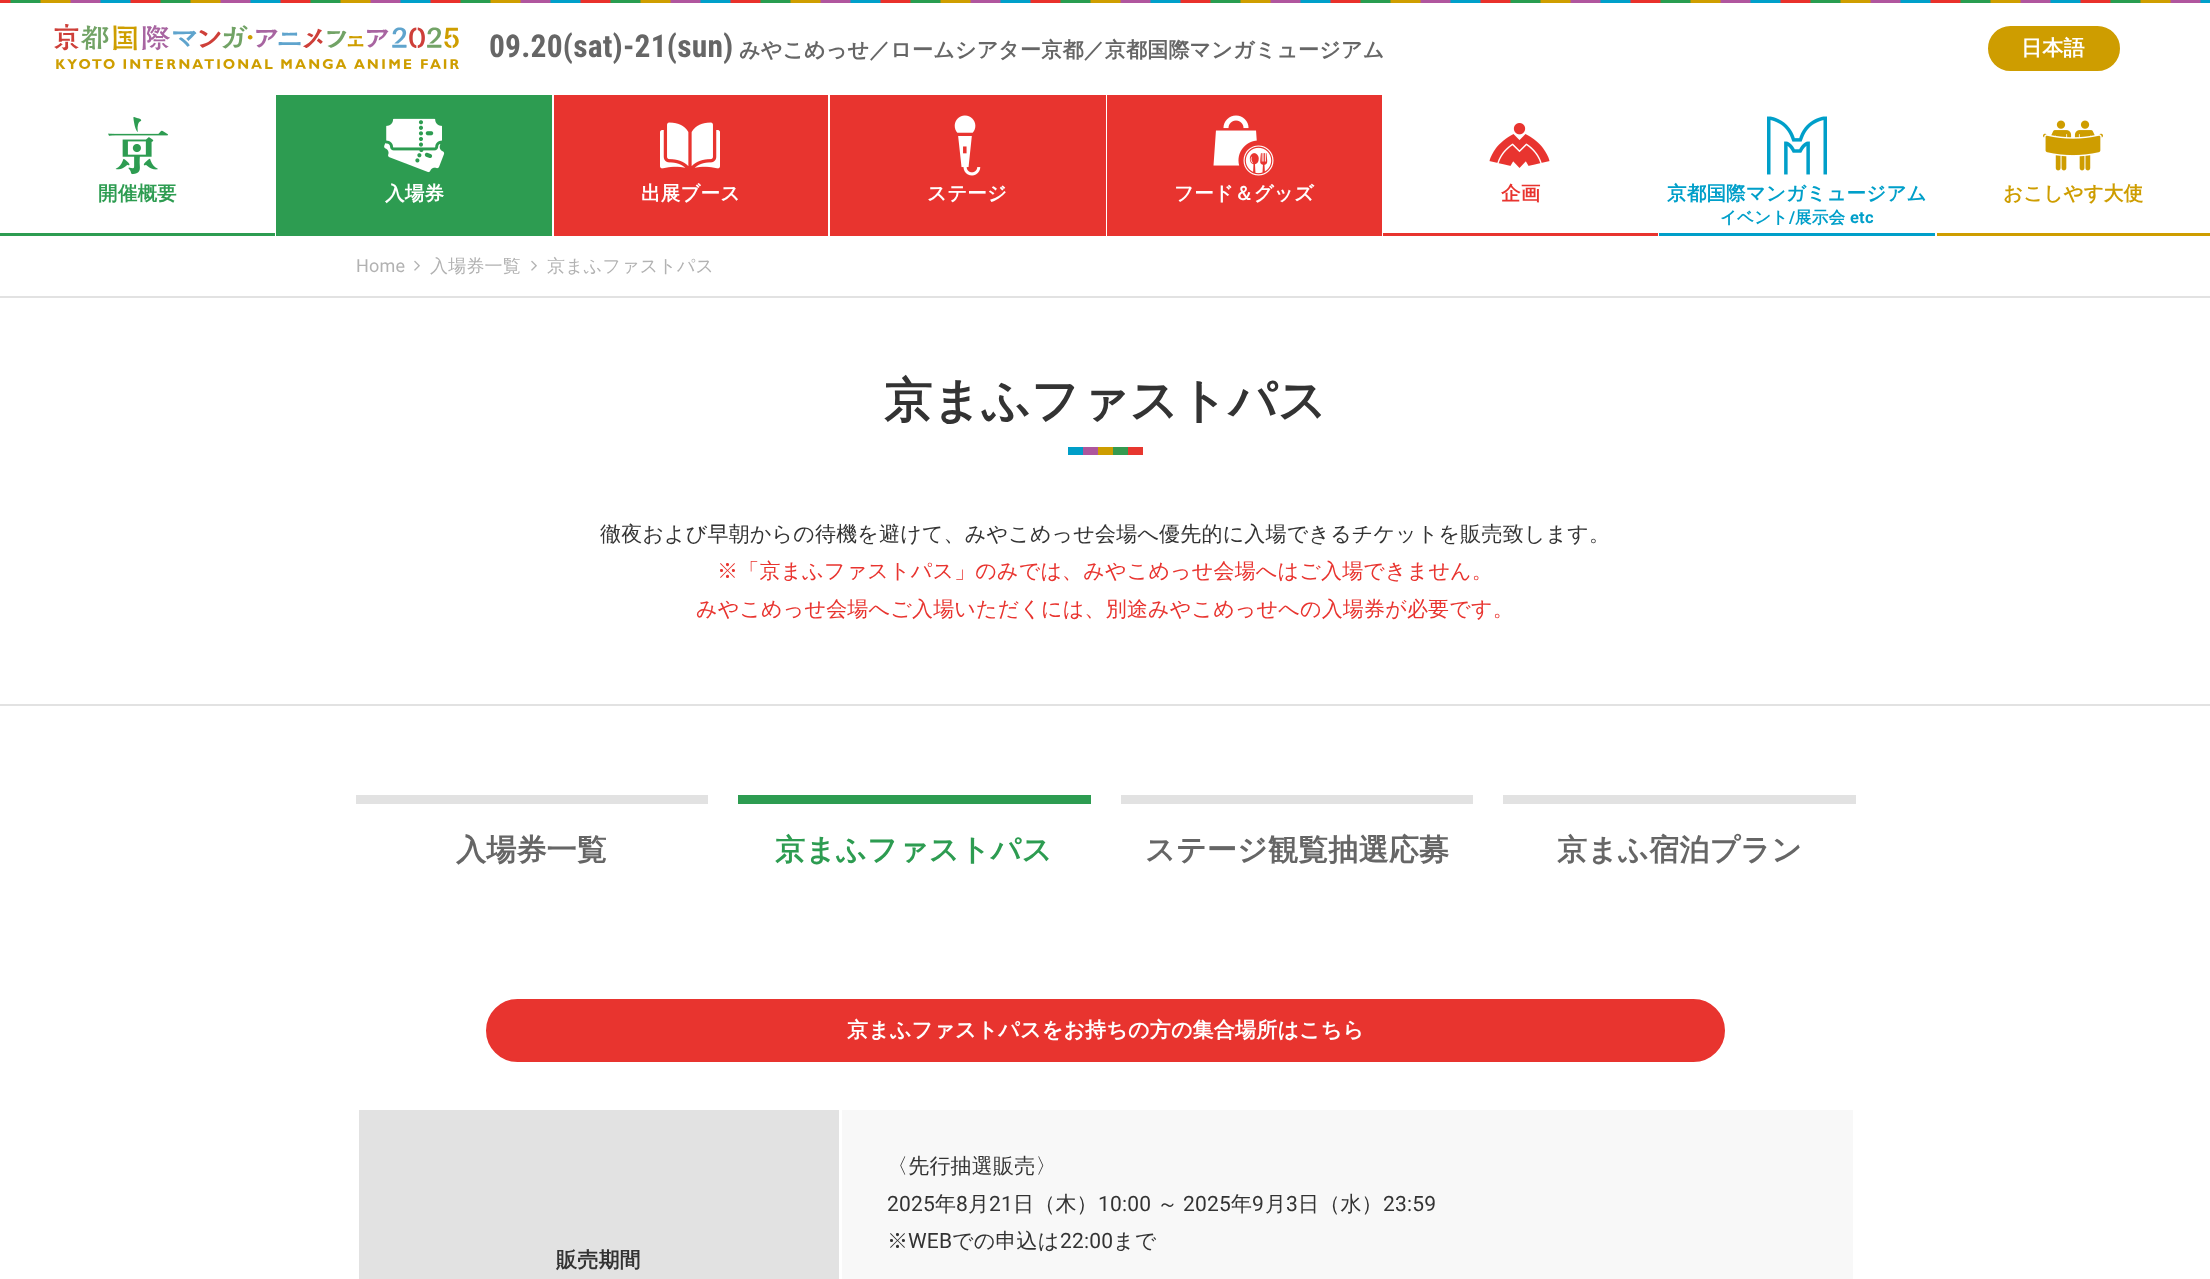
<!DOCTYPE html>
<meta charset="utf-8">
<style>body { margin: 0 } canvas { display: block }</style>
<canvas id="canvas" width="2210" height="1279"></canvas>
<script type="module">
  const canvas = document.getElementById("canvas");
  const g = canvas.getContext("2d");
  g.miterLimit = 4;
  g.fontKerning = "normal";
  function drawText(s, x, y, [font, color]) {
    g.font = font;
    g.fillStyle = color;
    g.fillText(s, x, y);
  }
  function fillBox(x, y, w, h, color) {
    g.fillStyle = color;
    g.fillRect(x, y, w, h);
  }
  async function drawPicture(src, x, y, w, h) {
    const img = new Image();
    img.src = src;
    await img.decode();
    g.drawImage(img, x, y, w, h);
  }

  const s1 = ["bold 31.5px Roboto Condensed", "#666666"];
  const s2 = ["bold 21px WenQuanYi Zen Hei", "#666666"];
  const s3 = ["bold 21px WenQuanYi Zen Hei", "#FFFFFF"];
  const s4 = ["bold 19.5px WenQuanYi Zen Hei", "#2D9C51"];
  const s5 = ["bold 19.5px WenQuanYi Zen Hei", "#FFFFFF"];
  const s6 = ["bold 19.5px WenQuanYi Zen Hei", "#E8342F"];
  const s7 = ["bold 19.5px WenQuanYi Zen Hei", "#009FC9"];
  const s8 = ["bold 16.5px WenQuanYi Zen Hei", "#009FC9"];
  const s9 = ["bold 16.5px Roboto", "#009FC9"];
  const s10 = ["bold 19.5px WenQuanYi Zen Hei", "#CE9D00"];
  const s11 = ["18px Roboto", "#B2B2B2"];
  const s12 = ["500 18px WenQuanYi Zen Hei", "#B2B2B2"];
  const s13 = ["bold 48px WenQuanYi Zen Hei", "#333333"];
  const s14 = ["500 21px WenQuanYi Zen Hei", "#333333"];
  const s15 = ["500 21px WenQuanYi Zen Hei", "#E8342F"];
  const s16 = ["bold 30px WenQuanYi Zen Hei", "#666666"];
  const s17 = ["bold 30px WenQuanYi Zen Hei", "#2D9C51"];
  const s18 = ["21px Roboto", "#333333"];
  const s19 = ["bold 21px WenQuanYi Zen Hei", "#333333"];

  fillBox(0, 0, 2210, 1279, "#FFFFFF");
  await drawPicture("pic1.png", 0, 0, 2210, 3);
  await drawPicture("pic2.png", 54, 24, 405, 45);
  g.letterSpacing = "0.2px";
  drawText("09.20(sat)-21(sun)", 489, 57, s1);
  drawText("みやこめっせ／ロームシアター京都／京都国際マンガミュージアム", 739, 57, s2);
  g.fillStyle = "#CE9D00";
  g.beginPath();
  g.roundRect(1989.5, 27.5, 129, 42, 21);
  g.fill();
  g.strokeStyle = "#CE9D00";
  g.lineWidth = 3;
  g.stroke();
  drawText("日本語", 2021, 55, s3);
  await drawPicture("pic3.png", 108, 117, 60, 58);
  drawText("開催概要", 98, 200, s4);
  fillBox(0, 233, 275, 3, "#2D9C51");
  fillBox(276, 95, 276, 141, "#2D9C51");
  await drawPicture("pic4.png", 384, 118, 61, 55);
  drawText("入場券", 385, 200, s5);
  fillBox(554, 95, 274, 141, "#E8342F");
  await drawPicture("pic5.png", 660, 122, 60, 47);
  drawText("出展ブース", 641, 200, s5);
  fillBox(830, 95, 276, 141, "#E8342F");
  await drawPicture("pic6.png", 954, 115, 27, 61);
  drawText("ステージ", 927, 200, s5);
  fillBox(1107, 95, 275, 141, "#E8342F");
  await drawPicture("pic7.png", 1213, 115, 61, 61);
  drawText("フード＆グッズ", 1174, 200, s5);
  await drawPicture("pic8.png", 1489, 123, 61, 45);
  drawText("企画", 1501, 200, s6);
  fillBox(1383, 233, 275, 3, "#E8342F");
  await drawPicture("pic9.png", 1767, 116, 60, 59);
  drawText("京都国際マンガミュージアム", 1667, 200, s7);
  drawText("イベント", 1720, 223, s8);
  drawText("/", 1789, 223, s9);
  drawText("展示会", 1795, 223, s8);
  drawText("etc", 1850, 223, s9);
  fillBox(1659, 233, 276, 3, "#009FC9");
  await drawPicture("pic10.png", 2043, 120, 60, 51);
  drawText("おこしやす大使", 2003, 200, s10);
  fillBox(1937, 233, 273, 3, "#CE9D00");
  fillBox(0, 296, 2210, 2, "#E2E2E2");
  drawText("Home", 356, 272, s11);
  await drawPicture("pic11.png", 414, 260, 6, 11);
  drawText("入場券一覧", 430, 272, s12);
  await drawPicture("pic11.png", 531, 260, 6, 11);
  drawText("京まふファストパス", 547, 272, s12);
  fillBox(0, 704, 2210, 2, "#E2E2E2");
  fillBox(1128, 447, 15, 8, "#E7372F");
  fillBox(1113, 447, 15, 8, "#359A50");
  fillBox(1098, 447, 15, 8, "#CD9D00");
  fillBox(1083, 447, 15, 8, "#AE569C");
  fillBox(1068, 447, 15, 8, "#009EC8");
  drawText("京まふファストパス", 884, 417, s13);
  drawText("徹夜および早朝からの待機を避けて、みやこめっせ会場へ優先的に入場できるチケットを販売致します。", 600, 541, s14);
  drawText("※「京まふファストパス」のみでは、みやこめっせ会場へはご入場できません。", 717, 578, s15);
  drawText("みやこめっせ会場へご入場いただくには、別途みやこめっせへの入場券が必要です。", 696, 616, s15);
  fillBox(356, 795, 352, 9, "#E2E2E2");
  drawText("入場券一覧", 456, 860, s16);
  fillBox(738, 795, 353, 9, "#2D9C51");
  drawText("京まふファストパス", 775, 860, s17);
  fillBox(1121, 795, 352, 9, "#E2E2E2");
  drawText("ステージ観覧抽選応募", 1145, 860, s16);
  fillBox(1503, 795, 353, 9, "#E2E2E2");
  drawText("京まふ宿泊プラン", 1557, 860, s16);
  g.fillStyle = "#E8342F";
  g.beginPath();
  g.roundRect(487, 1000, 1237, 61, 30.5);
  g.fill();
  g.strokeStyle = "#E8342F";
  g.lineWidth = 2;
  g.stroke();
  drawText("京まふファストパスをお持ちの方の集合場所はこちら", 847, 1037, s3);
  fillBox(842, 1110, 1011, 169, "#F8F8F8");
  drawText("〈先行抽選販売〉", 887, 1173, s14);
  drawText("2025", 887, 1211, s18);
  drawText("年", 935, 1211, s14);
  drawText("8", 956, 1211, s18);
  drawText("月", 968, 1211, s14);
  drawText("21", 989, 1211, s18);
  drawText("日（木）", 1013, 1211, s14);
  drawText("10:00", 1098, 1211, s18);
  drawText("～", 1157, 1211, s14);
  drawText("2025", 1183, 1211, s18);
  drawText("年", 1231, 1211, s14);
  drawText("9", 1252, 1211, s18);
  drawText("月", 1265, 1211, s14);
  drawText("3", 1286, 1211, s18);
  drawText("日（水）", 1298, 1211, s14);
  drawText("23:59", 1383, 1211, s18);
  drawText("※", 887, 1248, s14);
  drawText("WEB", 908, 1248, s18);
  drawText("での申込は", 952, 1248, s14);
  drawText("22:00", 1060, 1248, s18);
  drawText("まで", 1113, 1248, s14);
  fillBox(359, 1110, 480, 169, "#E2E2E2");
  drawText("販売期間", 556, 1267, s19);
</script>
